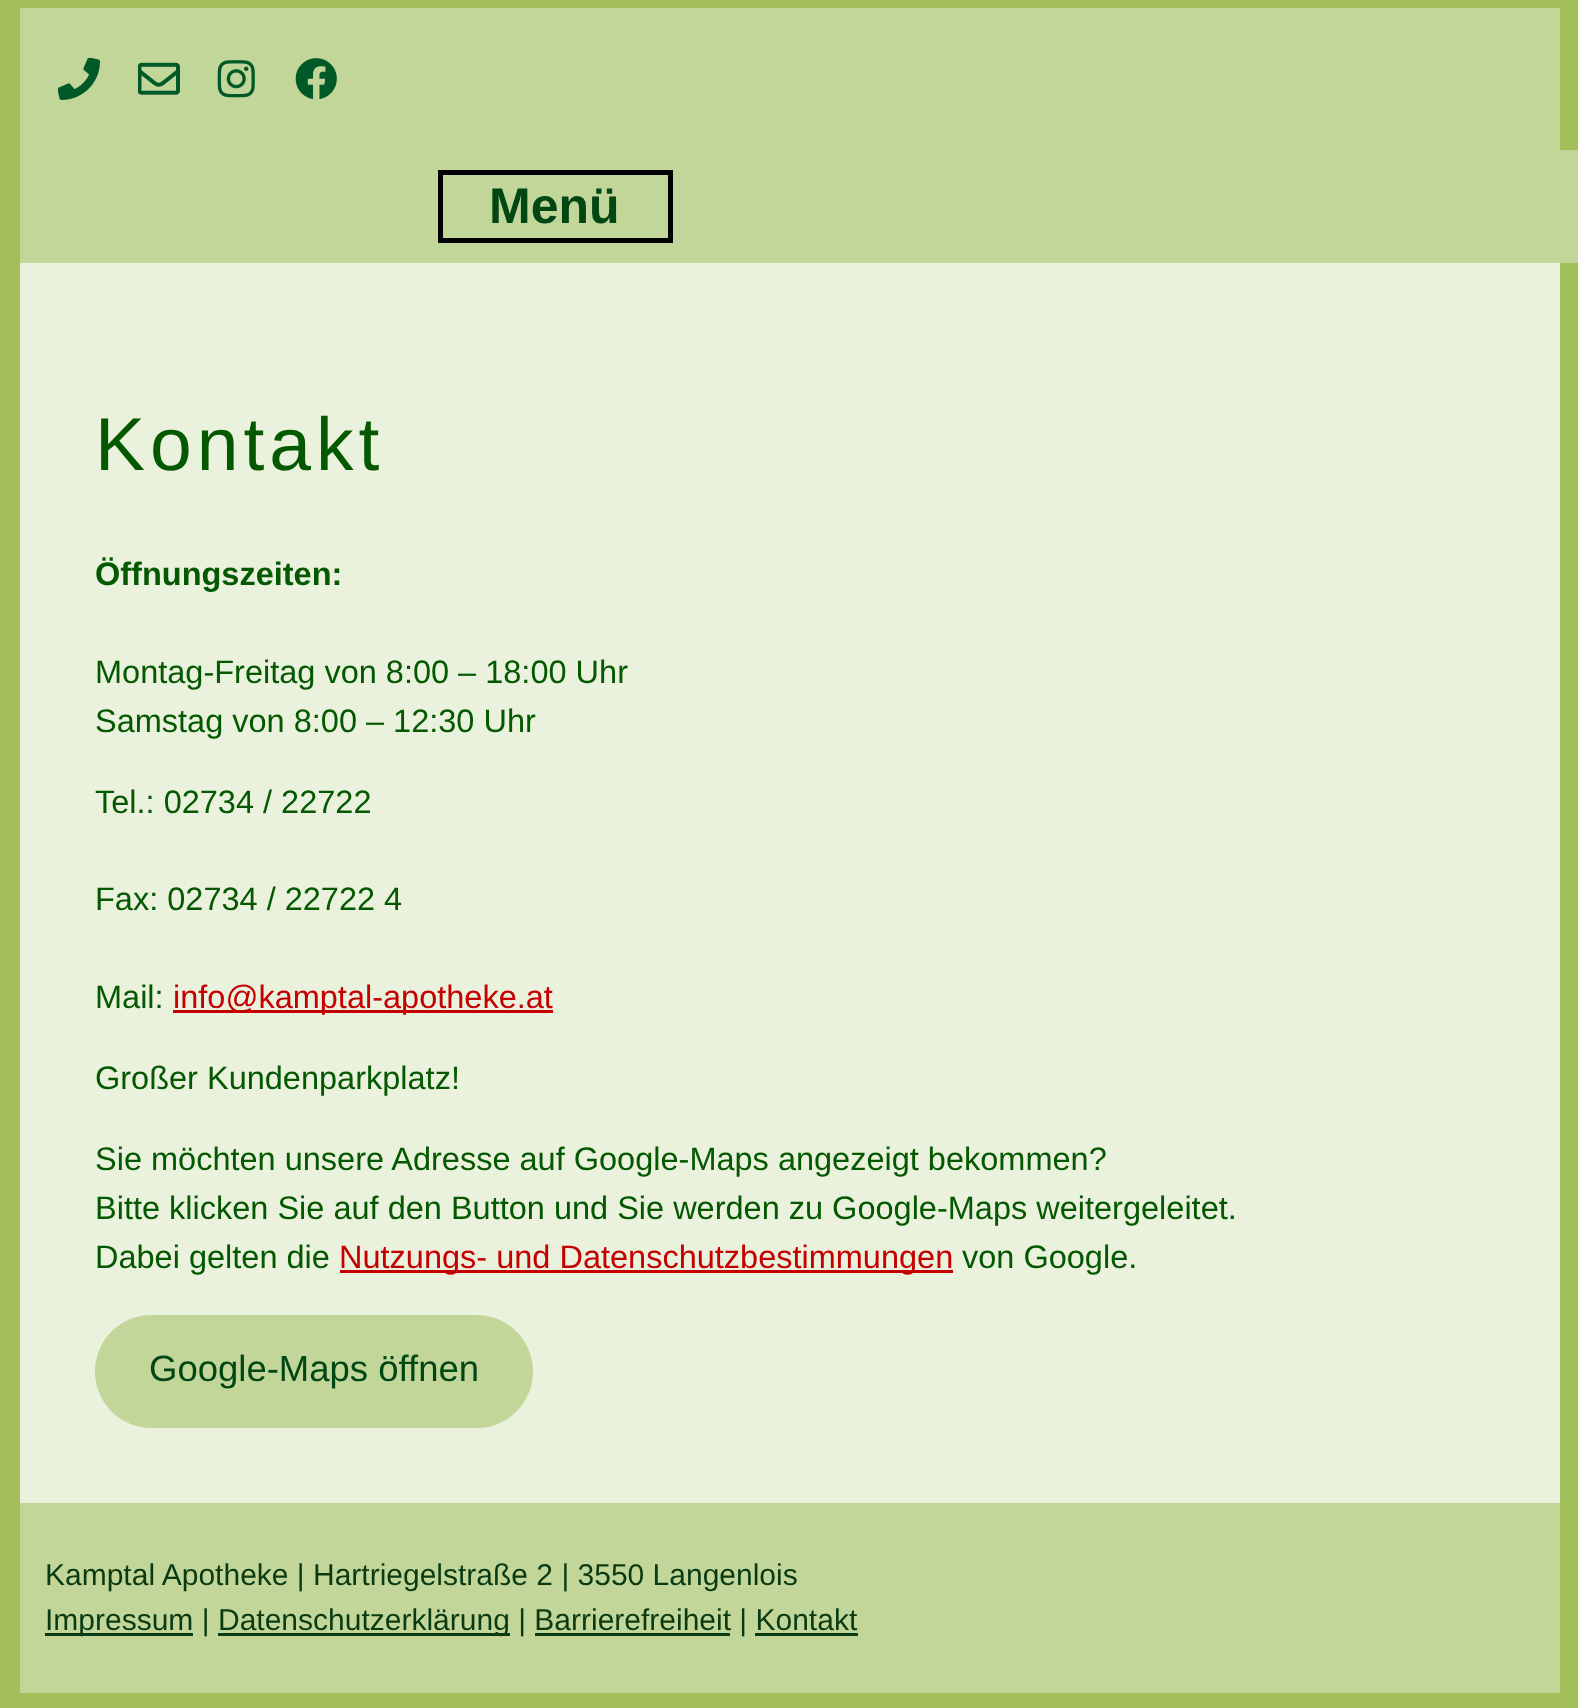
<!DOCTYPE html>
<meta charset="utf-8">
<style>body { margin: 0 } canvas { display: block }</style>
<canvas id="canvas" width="1578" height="1708"></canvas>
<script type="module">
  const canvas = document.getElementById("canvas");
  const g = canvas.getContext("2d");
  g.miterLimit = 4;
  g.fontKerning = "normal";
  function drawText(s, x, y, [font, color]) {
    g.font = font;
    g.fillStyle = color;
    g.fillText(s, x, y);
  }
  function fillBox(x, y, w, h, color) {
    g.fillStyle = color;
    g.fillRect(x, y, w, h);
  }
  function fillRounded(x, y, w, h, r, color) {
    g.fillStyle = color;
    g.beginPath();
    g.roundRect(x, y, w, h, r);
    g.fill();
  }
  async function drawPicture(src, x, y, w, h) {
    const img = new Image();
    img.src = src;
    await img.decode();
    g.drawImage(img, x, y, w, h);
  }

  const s1 = ["bold 50px Liberation Sans", "#004713"];
  const s2 = ["75px Liberation Sans", "#045900"];
  const s3 = ["bold 32.5px Liberation Sans", "#045900"];
  const s4 = ["32.5px Liberation Sans", "#045900"];
  const s5 = ["32.5px Liberation Sans", "#C50000"];
  const s6 = ["36.5px Liberation Sans", "#004713"];
  const s7 = ["30px Liberation Sans", "#093A11"];

  fillBox(0, 0, 1578, 1708, "#A2BF5A");
  fillBox(20, 8, 1540, 142, "#C2D69A");
  await drawPicture("pic1.png", 58, 58, 42, 42);
  await drawPicture("pic2.png", 138, 62, 42, 33);
  await drawPicture("pic3.png", 217, 60, 38, 38);
  await drawPicture("pic4.png", 295, 58, 42, 41);
  fillBox(20, 150, 1558, 113, "#C2D69A");
  g.strokeStyle = "#000000";
  g.lineWidth = 5;
  g.strokeRect(440.5, 172.5, 230, 68);
  drawText("Menü", 489, 223, s1);
  fillBox(20, 263, 1540, 1240, "#EAF1DD");
  g.letterSpacing = "5px";
  drawText("Kontakt", 95, 470, s2);
  g.letterSpacing = "0px";
  drawText("Öffnungszeiten:", 95, 585, s3);
  drawText("Montag-Freitag von 8:00 – 18:00 Uhr", 95, 683, s4);
  drawText("Samstag von 8:00 – 12:30 Uhr", 95, 732, s4);
  drawText("Tel.: 02734 / 22722", 95, 813, s4);
  drawText("Fax: 02734 / 22722 4", 95, 910, s4);
  drawText("Mail:", 95, 1008, s4);
  fillBox(173, 1010, 380, 3, "#C50000");
  drawText("info@kamptal-apotheke.at", 173, 1008, s5);
  drawText("Großer Kundenparkplatz!", 95, 1089, s4);
  drawText("Sie möchten unsere Adresse auf Google-Maps angezeigt bekommen?", 95, 1170, s4);
  drawText("Bitte klicken Sie auf den Button und Sie werden zu Google-Maps weitergeleitet.", 95, 1219, s4);
  drawText("Dabei gelten die", 95, 1268, s4);
  fillBox(340, 1270, 613, 3, "#C50000");
  drawText("Nutzungs- und Datenschutzbestimmungen", 339, 1268, s5);
  drawText("von Google.", 962, 1268, s4);
  fillRounded(95, 1315, 438, 113, 56.5, "#C2D69A");
  drawText("Google-Maps öffnen", 149, 1381, s6);
  fillBox(20, 1503, 1540, 190, "#C2D69A");
  drawText("Kamptal Apotheke | Hartriegelstraße 2 | 3550 Langenlois", 45, 1585, s7);
  fillBox(45, 1633, 148, 3, "#093A11");
  drawText("Impressum |", 45, 1630, s7);
  fillBox(218, 1633, 292, 3, "#093A11");
  drawText("Datenschutzerklärung | Barrierefreiheit | Kontakt", 218, 1630, s7);
  fillBox(535, 1633, 195, 3, "#093A11");
  fillBox(755, 1633, 103, 3, "#093A11");
</script>
